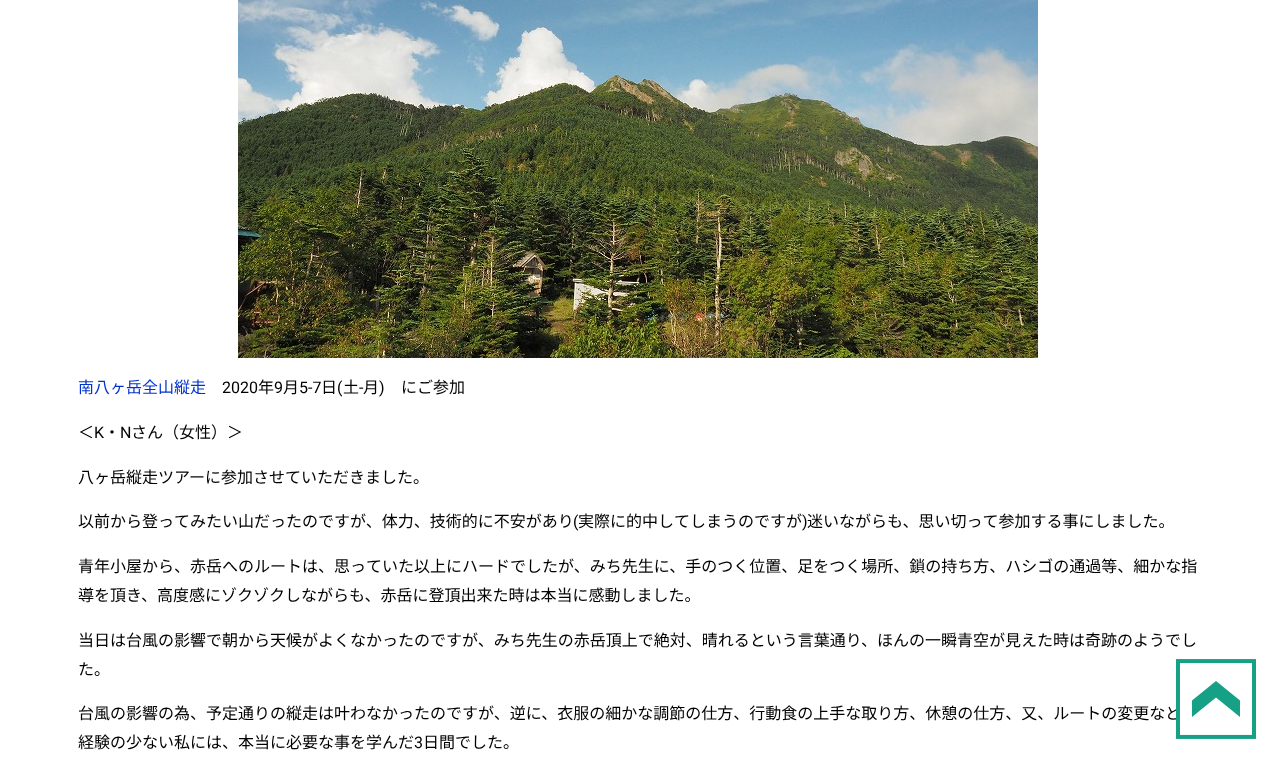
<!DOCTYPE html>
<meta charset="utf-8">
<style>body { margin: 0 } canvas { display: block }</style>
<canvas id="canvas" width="1276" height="759"></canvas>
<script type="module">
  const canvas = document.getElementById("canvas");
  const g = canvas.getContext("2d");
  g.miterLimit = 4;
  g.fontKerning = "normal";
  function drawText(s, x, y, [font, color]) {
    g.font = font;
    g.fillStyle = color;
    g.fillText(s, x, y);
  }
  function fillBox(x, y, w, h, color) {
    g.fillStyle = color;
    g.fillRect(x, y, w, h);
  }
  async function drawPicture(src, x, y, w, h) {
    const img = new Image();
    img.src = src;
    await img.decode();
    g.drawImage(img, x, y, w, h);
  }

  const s1 = ["16px Noto Sans JP", "#0033CC"];
  const s2 = ["16px Roboto", "#000000"];
  const s3 = ["16px Noto Sans JP", "#000000"];

  fillBox(0, 0, 1276, 759, "#FFFFFF");
  await drawPicture("pic1.png", 238, 0, 800, 358);
  drawText("南八ヶ岳全山縦走", 78, 393, s1);
  drawText("2020", 222, 393, s2);
  drawText("年", 258, 393, s3);
  drawText("9", 274, 393, s2);
  drawText("月", 283, 393, s3);
  drawText("5-7", 299, 393, s2);
  drawText("日", 321, 393, s3);
  drawText("(", 337, 393, s2);
  drawText("土", 343, 393, s3);
  drawText("-", 359, 393, s2);
  drawText("月", 363, 393, s3);
  drawText(")", 379, 393, s2);
  drawText("にご参加", 401, 393, s3);
  drawText("＜", 78, 438, s3);
  drawText("K", 94, 438, s2);
  drawText("・", 104, 438, s3);
  drawText("N", 120, 438, s2);
  drawText("さん（女性）＞", 131, 438, s3);
  drawText("八ヶ岳縦走ツアーに参加させていただきました。", 78, 483, s3);
  drawText("以前から登ってみたい山だったのですが、体力、技術的に不安があり", 78, 527, s3);
  drawText("(", 573, 527, s2);
  drawText("実際に的中してしまうのですが", 578, 527, s3);
  drawText(")", 802, 527, s2);
  drawText("迷いながらも、思い切って参加する事にしました。", 807, 527, s3);
  drawText("青年小屋から、赤岳へのルートは、思っていた以上にハードでしたが、みち先生に、手のつく位置、足をつく場所、鎖の持ち方、ハシゴの通過等、細かな指", 78, 572, s3);
  drawText("導を頂き、高度感にゾクゾクしながらも、赤岳に登頂出来た時は本当に感動しました。", 78, 601, s3);
  drawText("当日は台風の影響で朝から天候がよくなかったのですが、みち先生の赤岳頂上で絶対、晴れるという言葉通り、ほんの一瞬青空が見えた時は奇跡のようでし", 78, 646, s3);
  drawText("た。", 78, 675, s3);
  drawText("台風の影響の為、予定通りの縦走は叶わなかったのですが、逆に、衣服の細かな調節の仕方、行動食の上手な取り方、休憩の仕方、又、ルートの変更など", 78, 719, s3);
  drawText("経験の少ない私には、本当に必要な事を学んだ", 78, 748, s3);
  drawText("3", 414, 748, s2);
  drawText("日間でした。", 423, 748, s3);
  await drawPicture("pic2.png", 1176, 659, 80, 80);
</script>
